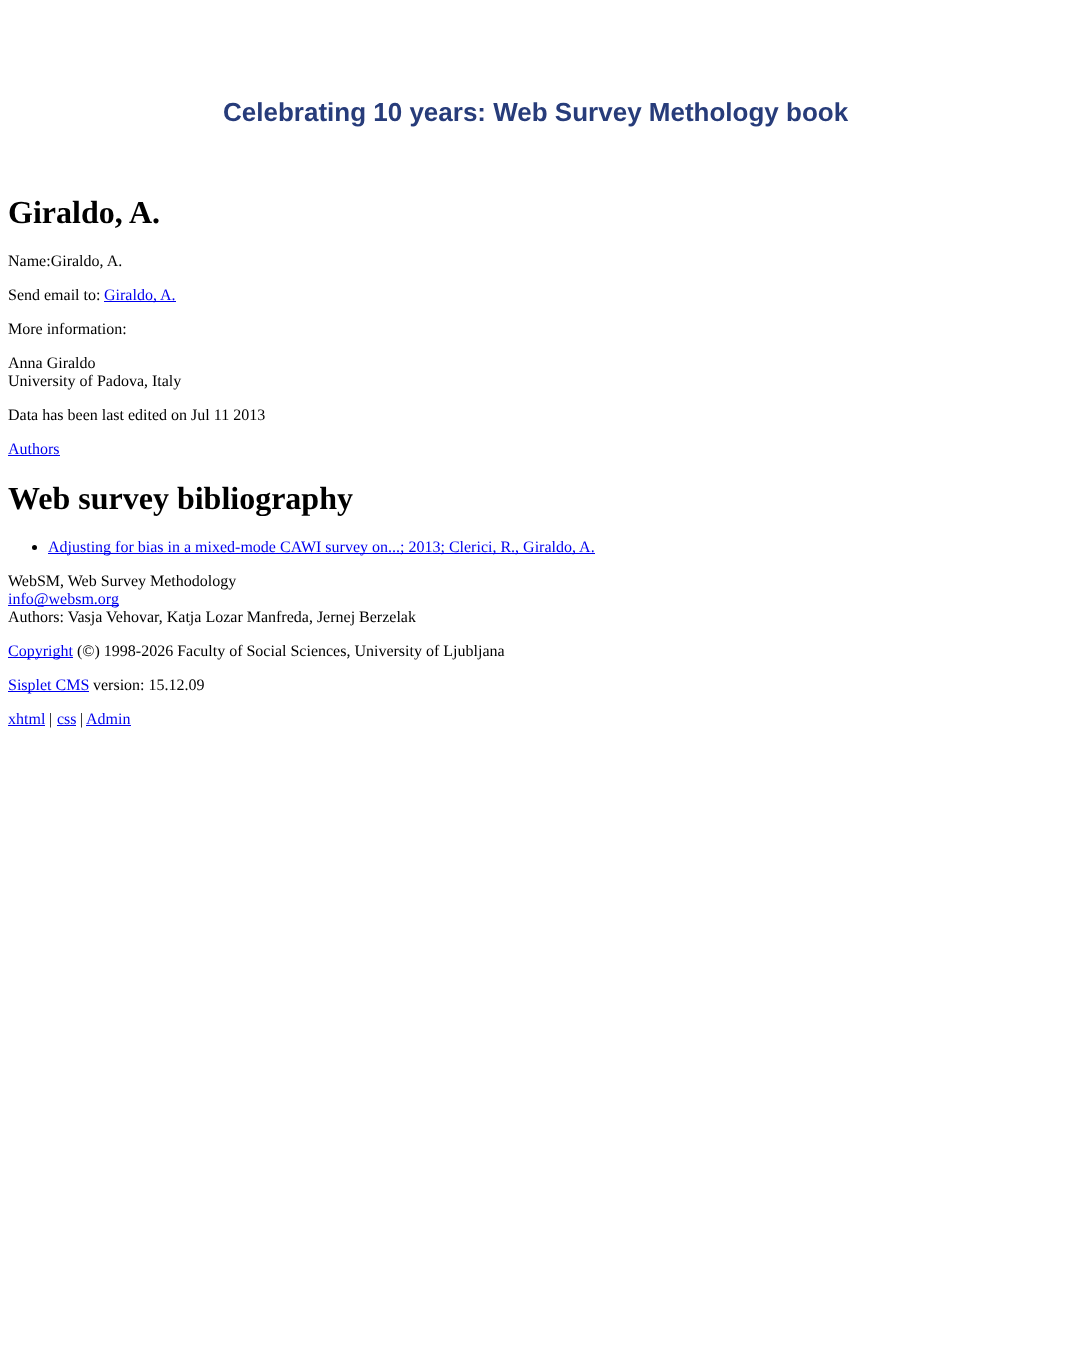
<!DOCTYPE html>
<meta charset="utf-8">
<style>body { margin: 0 } canvas { display: block }</style>
<canvas id="canvas" width="1071" height="1358"></canvas>
<script type="module">
  const canvas = document.getElementById("canvas");
  const g = canvas.getContext("2d");
  g.miterLimit = 4;
  g.fontKerning = "normal";
  function drawText(s, x, y, [font, color]) {
    g.font = font;
    g.fillStyle = color;
    g.fillText(s, x, y);
  }
  function fillBox(x, y, w, h, color) {
    g.fillStyle = color;
    g.fillRect(x, y, w, h);
  }

  const s1 = ["bold 26px Liberation Sans", "#273C7A"];
  const s2 = ["bold 32px Liberation Serif", "#000000"];
  const s3 = ["16px Liberation Serif", "#000000"];
  const s4 = ["16px Liberation Serif", "#0000EE"];

  fillBox(0, 0, 1071, 1358, "#FFFFFF");
  drawText("Celebrating 10 years: Web Survey Methology book", 223, 121, s1);
  drawText("Giraldo, A.", 8, 223, s2);
  drawText("Name:Giraldo, A.", 8, 266, s3);
  drawText("Send email to:", 8, 300, s3);
  fillBox(104, 301, 72, 1, "#0000EE");
  drawText("Giraldo, A.", 104, 300, s4);
  drawText("More information:", 8, 334, s3);
  drawText("Anna Giraldo", 8, 368, s3);
  drawText("University of Padova, Italy", 8, 386, s3);
  drawText("Data has been last edited on Jul 11 2013", 8, 420, s3);
  drawText("Authors", 8, 454, s4);
  fillBox(8, 455, 52, 1, "#0000EE");
  drawText("Web survey bibliography", 8, 509, s2);
  g.beginPath();
  g.arc(34.5, 547.5, 2.5, 0, Math.PI * 2);
  g.fill();
  fillBox(48, 553, 547, 1, "#0000EE");
  drawText("Adjusting for bias in a mixed-mode CAWI survey on...; 2013; Clerici, R., Giraldo, A.", 48, 552, s4);
  drawText("WebSM, Web Survey Methodology", 8, 586, s3);
  fillBox(8, 605, 111, 1, "#0000EE");
  drawText("info@websm.org", 8, 604, s4);
  drawText("Authors: Vasja Vehovar, Katja Lozar Manfreda, Jernej Berzelak", 8, 622, s3);
  fillBox(8, 657, 65, 1, "#0000EE");
  drawText("Copyright", 8, 656, s4);
  drawText("(©) 1998-2026 Faculty of Social Sciences, University of Ljubljana", 77, 656, s3);
  fillBox(8, 691, 81, 1, "#0000EE");
  drawText("Sisplet CMS", 8, 690, s4);
  drawText("version: 15.12.09", 93, 690, s3);
  drawText("xhtml", 8, 724, s4);
  fillBox(8, 725, 37, 1, "#0000EE");
  drawText("|", 49, 724, s3);
  drawText("css", 57, 724, s4);
  fillBox(57, 725, 19, 1, "#0000EE");
  drawText("|", 80, 724, s3);
  drawText("Admin", 86, 724, s4);
  fillBox(86, 725, 45, 1, "#0000EE");
</script>
